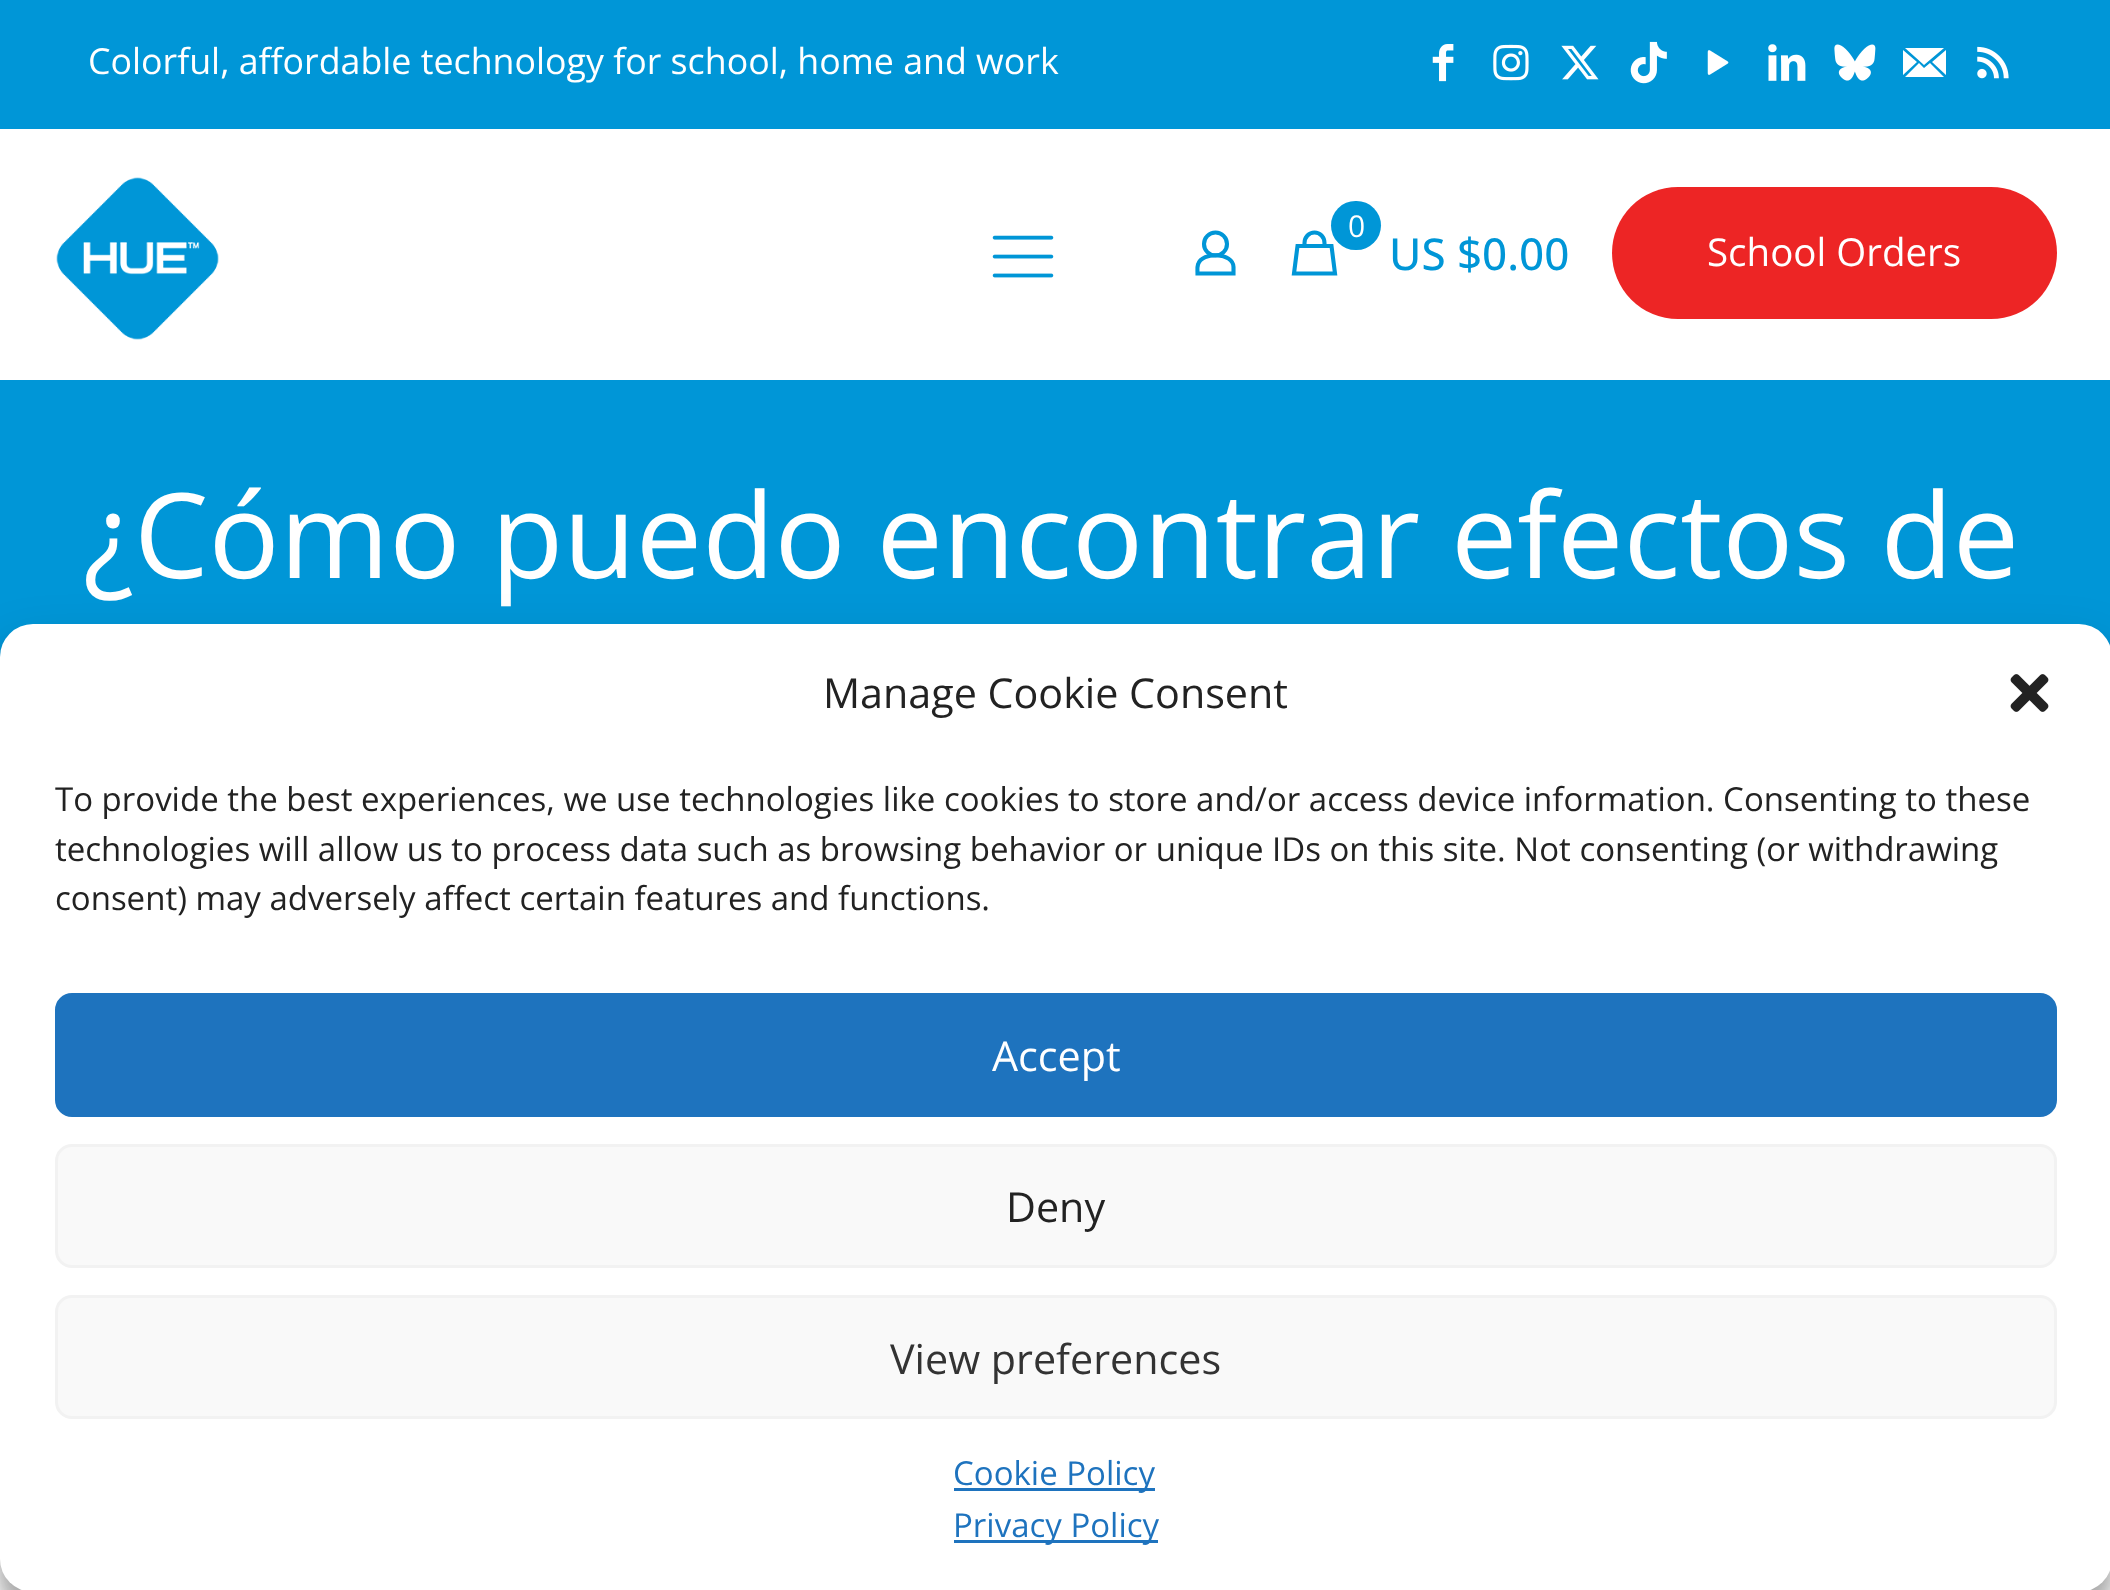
<!DOCTYPE html>
<meta charset="utf-8">
<style>body { margin: 0 } canvas { display: block }</style>
<canvas id="canvas" width="2110" height="1590"></canvas>
<script type="module">
  const canvas = document.getElementById("canvas");
  const g = canvas.getContext("2d");
  g.miterLimit = 4;
  g.fontKerning = "normal";
  function drawText(s, x, y, [font, color]) {
    g.font = font;
    g.fillStyle = color;
    g.fillText(s, x, y);
  }
  function fillBox(x, y, w, h, color) {
    g.fillStyle = color;
    g.fillRect(x, y, w, h);
  }
  function fillRounded(x, y, w, h, r, color) {
    g.fillStyle = color;
    g.beginPath();
    g.roundRect(x, y, w, h, r);
    g.fill();
  }
  async function drawPicture(src, x, y, w, h) {
    const img = new Image();
    img.src = src;
    await img.decode();
    g.drawImage(img, x, y, w, h);
  }

  const s1 = ["35.75px Open Sans", "#FFFFFF"];
  const s2 = ["30px Open Sans", "#FFFFFF"];
  const s3 = ["500 44px Open Sans", "#0096D7"];
  const s4 = ["38.5px Open Sans", "#FFFFFF"];
  const s5 = ["118.25px Open Sans", "#FFFFFF"];
  const s6 = ["41.25px Open Sans", "#222222"];
  const s7 = ["33px Open Sans", "#222222"];
  const s8 = ["41.25px Open Sans", "#FFFFFF"];
  const s9 = ["41.25px Open Sans", "#333333"];
  const s10 = ["33px Open Sans", "#1E73BE"];

  fillBox(0, 0, 2110, 1590, "#FFFFFF");
  fillBox(0, 0, 2110, 657, "#0096D7");
  drawText("Colorful, affordable technology for school, home and work", 88, 74, s1);
  await drawPicture("pic1.png", 1432, 44, 22, 38);
  await drawPicture("pic2.png", 1493, 44, 36, 37);
  await drawPicture("pic3.png", 1561, 45, 38, 35);
  await drawPicture("pic4.png", 1630, 41, 37, 43);
  await drawPicture("pic5.png", 1707, 50, 22, 25);
  await drawPicture("pic6.png", 1768, 44, 38, 37);
  await drawPicture("pic7.png", 1834, 44, 42, 37);
  g.beginPath();
  g.moveTo(1903, 74);
  g.lineTo(1903, 50);
  g.lineTo(1917, 62);
  g.lineTo(1903, 75);
  g.closePath();
  g.moveTo(1905, 48);
  g.lineTo(1944, 48);
  g.lineTo(1924, 65);
  g.closePath();
  g.moveTo(1905, 77);
  g.lineTo(1919, 63);
  g.lineTo(1924, 68);
  g.lineTo(1930, 63);
  g.lineTo(1944, 77);
  g.closePath();
  g.moveTo(1932, 62);
  g.lineTo(1946, 50);
  g.lineTo(1946, 75);
  g.closePath();
  g.fill();
  await drawPicture("pic8.png", 1977, 46, 32, 33);
  fillBox(0, 129, 2110, 251, "#FFFFFF");
  await drawPicture("pic9.png", 56, 177, 163, 163);
  await drawPicture("pic10.png", 992, 235, 62, 43);
  g.beginPath();
  g.arc(1215.5, 244, 11.5, 0, Math.PI * 2);
  g.strokeStyle = "#0096D7";
  g.lineWidth = 4.1;
  g.stroke();
  g.beginPath();
  g.moveTo(1233.5, 267);
  g.lineTo(1233.5, 273.5);
  g.lineTo(1197.5, 273.5);
  g.bezierCurveTo(1197.5, 270.5, 1197, 267.5, 1198, 264.5);
  g.bezierCurveTo(1202, 251, 1233.5, 252.5, 1233.5, 267);
  g.closePath();
  g.stroke();
  g.beginPath();
  g.moveTo(1335, 273.5);
  g.lineTo(1294, 273.5);
  g.lineTo(1297.5, 246);
  g.lineTo(1331.5, 246);
  g.closePath();
  g.moveTo(1304.5, 246);
  g.lineTo(1304.5, 243);
  g.bezierCurveTo(1304.5, 237, 1309, 232.5, 1314.5, 232.5);
  g.bezierCurveTo(1320, 232.5, 1324.5, 237, 1324.5, 243);
  g.lineTo(1324.5, 246);
  g.stroke();
  fillRounded(1331, 201, 50, 49, 24.5, "#0096D7");
  drawText("0", 1348, 237, s2);
  drawText("US $0.00", 1389, 270, s3);
  fillRounded(1612, 187, 445, 132, 66, "#ED2525");
  drawText("School Orders", 1707, 266, s4);
  drawText("¿Cómo puedo encontrar efectos de", 83, 578, s5);
  g.fillStyle = "rgba(0, 0, 0, 0.23)";
  g.filter = "blur(8px)";
  g.beginPath();
  g.roundRect(0, 641, 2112, 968, 33);
  g.fill();
  g.filter = "none";
  g.fillStyle = "rgba(0, 0, 0, 0.19)";
  g.filter = "blur(27.5px)";
  g.beginPath();
  g.roundRect(0, 652, 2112, 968, 33);
  g.fill();
  g.filter = "none";
  fillRounded(0, 624, 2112, 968, 33, "#FFFFFF");
  drawText("Manage Cookie Consent", 823, 708, s6);
  await drawPicture("pic11.png", 2010, 674, 39, 38);
  drawText("To provide the best experiences, we use technologies like cookies to store and/or access device information. Consenting to these", 55, 811, s7);
  drawText("technologies will allow us to process data such as browsing behavior or unique IDs on this site. Not consenting (or withdrawing", 55, 861, s7);
  drawText("consent) may adversely affect certain features and functions.", 55, 910, s7);
  g.fillStyle = "#1E73BE";
  g.beginPath();
  g.roundRect(56.5, 994.5, 1999, 121, 15.5);
  g.fill();
  g.strokeStyle = "#1E73BE";
  g.lineWidth = 3;
  g.stroke();
  drawText("Accept", 992, 1071, s8);
  g.fillStyle = "#F9F9F9";
  g.beginPath();
  g.roundRect(56.5, 1145.5, 1999, 121, 15.5);
  g.fill();
  g.strokeStyle = "#F2F2F2";
  g.stroke();
  drawText("Deny", 1006, 1222, s6);
  g.fillStyle = "#F9F9F9";
  g.beginPath();
  g.roundRect(56.5, 1296.5, 1999, 121, 15.5);
  g.fill();
  g.stroke();
  drawText("View preferences", 890, 1374, s9);
  fillBox(954, 1488, 201, 3, "#1E73BE");
  drawText("Cookie Policy", 953, 1485, s10);
  fillBox(954, 1540, 204, 3, "#1E73BE");
  drawText("Privacy Policy", 953, 1537, s10);
</script>
